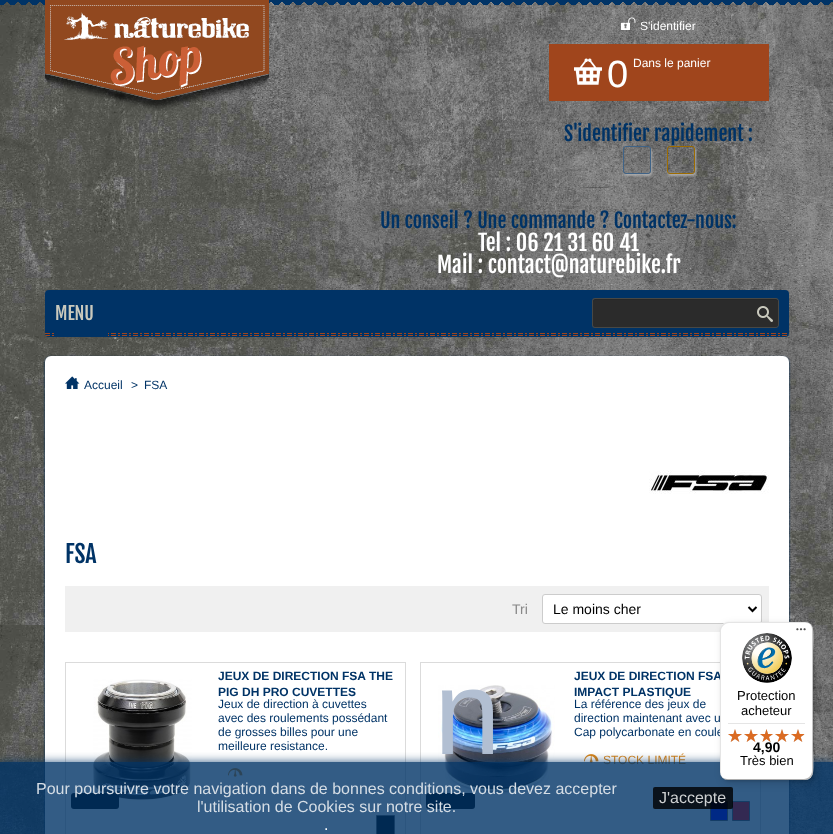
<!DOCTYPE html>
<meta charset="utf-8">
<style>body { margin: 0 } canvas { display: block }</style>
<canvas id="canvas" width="833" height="834"></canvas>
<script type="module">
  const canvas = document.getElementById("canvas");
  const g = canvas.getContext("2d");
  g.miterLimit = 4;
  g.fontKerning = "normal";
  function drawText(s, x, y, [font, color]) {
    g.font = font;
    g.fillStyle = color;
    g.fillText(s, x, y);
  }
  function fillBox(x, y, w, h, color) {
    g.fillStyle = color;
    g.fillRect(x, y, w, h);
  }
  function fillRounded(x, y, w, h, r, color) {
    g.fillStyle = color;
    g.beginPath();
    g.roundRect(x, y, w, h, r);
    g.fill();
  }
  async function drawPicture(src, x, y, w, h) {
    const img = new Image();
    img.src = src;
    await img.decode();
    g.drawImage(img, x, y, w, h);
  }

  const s1 = ["12px Liberation Sans", "#FFFFFF"];
  const s2 = ["38px Liberation Sans", "#FFFFFF"];
  const s3 = ["20px Fjalla One", "#003366"];
  const s4 = ["22px Fjalla One", "#FFFFFF"];
  const s5 = ["18px Fjalla One", "#C9C9BD"];
  const s6 = ["12px Liberation Sans", "#003366"];
  const s7 = ["24px Fjalla One", "#003366"];
  const s8 = ["14px Liberation Sans", "#888888"];
  const s9 = ["14px Liberation Sans", "#000000"];
  const s10 = ["bold 12px Liberation Sans", "#003366"];
  const s11 = ["120px Liberation Sans", "#B2BFD2"];
  const s12 = ["12px Liberation Sans", "#D9851B"];
  const s13 = ["13px Liberation Sans", "#000000"];
  const s14 = ["bold 14px Liberation Sans", "#000000"];
  const s15 = ["16px Liberation Sans", "#D5DDE5"];
  const s16 = ["16px Liberation Sans", "#FFFFFF"];
  const s17 = ["16px Liberation Sans", "#CED0D1"];

  fillBox(0, 0, 833, 834, "#FFFFFF");
  await drawPicture("pic1.png", 0, 2, 833, 832);
  await drawPicture("pic2.png", 0, 0, 833, 5);
  await drawPicture("pic3.png", 45, 0, 224, 111);
  await drawPicture("pic4.png", 621, 17, 15, 13);
  drawText("S'identifier", 640, 30, s1);
  fillBox(549, 44, 220, 57, "#A0451C");
  await drawPicture("pic5.png", 574, 58, 28, 27);
  drawText("0", 607, 87, s2);
  drawText("Dans le panier", 633, 67, s1);
  drawText("S'identifier rapidement :", 564, 141, s3);
  g.save();
  g.beginPath();
  g.moveTo(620, 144);
  g.lineTo(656, 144);
  g.lineTo(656, 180);
  g.lineTo(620, 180);
  g.closePath();
  g.moveTo(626, 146);
  g.lineTo(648, 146);
  g.bezierCurveTo(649.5, 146, 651, 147.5, 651, 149);
  g.lineTo(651, 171);
  g.bezierCurveTo(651, 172.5, 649.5, 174, 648, 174);
  g.lineTo(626, 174);
  g.bezierCurveTo(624.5, 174, 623, 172.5, 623, 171);
  g.lineTo(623, 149);
  g.bezierCurveTo(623, 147.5, 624.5, 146, 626, 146);
  g.closePath();
  g.clip("evenodd");
  g.fillStyle = "#AAAAAA";
  g.filter = "blur(1px)";
  g.beginPath();
  g.roundRect(624, 148, 28, 28, 3);
  g.fill();
  g.filter = "none";
  g.restore();
  g.beginPath();
  g.roundRect(623.5, 146.5, 27, 27, 2.5);
  g.strokeStyle = "#3F6387";
  g.stroke();
  g.save();
  g.beginPath();
  g.moveTo(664, 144);
  g.lineTo(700, 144);
  g.lineTo(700, 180);
  g.lineTo(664, 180);
  g.closePath();
  g.moveTo(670, 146);
  g.lineTo(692, 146);
  g.bezierCurveTo(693.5, 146, 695, 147.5, 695, 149);
  g.lineTo(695, 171);
  g.bezierCurveTo(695, 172.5, 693.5, 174, 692, 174);
  g.lineTo(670, 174);
  g.bezierCurveTo(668.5, 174, 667, 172.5, 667, 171);
  g.lineTo(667, 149);
  g.bezierCurveTo(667, 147.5, 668.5, 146, 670, 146);
  g.closePath();
  g.clip("evenodd");
  g.fillStyle = "#AAAAAA";
  g.filter = "blur(1px)";
  g.beginPath();
  g.roundRect(668, 148, 28, 28, 3);
  g.fill();
  g.filter = "none";
  g.restore();
  g.beginPath();
  g.roundRect(667.5, 146.5, 27, 27, 2.5);
  g.strokeStyle = "#9D6C00";
  g.stroke();
  drawText("Un conseil ? Une commande ? Contactez-nous:", 380, 228, s3);
  drawText("Tel : 06 21 31 60 41", 478, 251, s4);
  drawText("Mail : contact@naturebike.fr", 437, 273, s4);
  await drawPicture("pic6.png", 45, 290, 744, 47);
  fillBox(56, 333, 52, 3, "#003366");
  drawText("MENU", 55, 320, s5);
  g.fillStyle = "#2B2B2B";
  g.beginPath();
  g.roundRect(593, 299, 159, 28, [2, 0, 0, 2]);
  g.fill();
  g.fillStyle = "rgba(0, 0, 0, 0.07)";
  g.beginPath();
  g.moveTo(595, 300);
  g.lineTo(752, 300);
  g.lineTo(752, 299);
  g.lineTo(595, 299);
  g.bezierCurveTo(593, 299, 593, 301, 593, 302);
  g.bezierCurveTo(593, 301, 594, 300, 595, 300);
  g.closePath();
  g.fill();
  g.fillStyle = "#484845";
  g.beginPath();
  g.moveTo(595, 298);
  g.lineTo(752, 298);
  g.lineTo(752, 328);
  g.lineTo(595, 328);
  g.bezierCurveTo(593, 328, 592, 327, 592, 325);
  g.lineTo(592, 301);
  g.bezierCurveTo(592, 299, 593, 298, 595, 298);
  g.closePath();
  g.moveTo(595, 299);
  g.lineTo(752, 299);
  g.lineTo(752, 327);
  g.lineTo(595, 327);
  g.bezierCurveTo(594, 327, 593, 326, 593, 325);
  g.lineTo(593, 301);
  g.bezierCurveTo(593, 300, 594, 299, 595, 299);
  g.closePath();
  g.fill("evenodd");
  g.fillStyle = "#2B2B2B";
  g.beginPath();
  g.roundRect(752, 299, 26, 28, [0, 2, 2, 0]);
  g.fill();
  g.fillStyle = "rgba(0, 0, 0, 0.07)";
  g.beginPath();
  g.moveTo(752, 300);
  g.lineTo(776, 300);
  g.bezierCurveTo(777, 300, 778, 301, 778, 302);
  g.lineTo(778, 301);
  g.bezierCurveTo(778, 300, 777, 299, 776, 299);
  g.lineTo(752, 299);
  g.closePath();
  g.fill();
  g.fillStyle = "#484845";
  g.beginPath();
  g.moveTo(752, 298);
  g.lineTo(776, 298);
  g.bezierCurveTo(777.5, 298, 779, 299.5, 779, 301);
  g.lineTo(779, 325);
  g.bezierCurveTo(779, 326.5, 777.5, 328, 776, 328);
  g.lineTo(752, 328);
  g.closePath();
  g.moveTo(752, 299);
  g.lineTo(776, 299);
  g.bezierCurveTo(777, 299, 778, 300, 778, 301);
  g.lineTo(778, 325);
  g.bezierCurveTo(778, 326, 777, 327, 776, 327);
  g.lineTo(752, 327);
  g.closePath();
  g.fill("evenodd");
  await drawPicture("pic7.png", 757, 306, 16, 16);
  g.fillStyle = "#003061";
  g.filter = "blur(1px)";
  g.beginPath();
  g.roundRect(45, 357, 744, 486, 6);
  g.fill();
  g.filter = "none";
  fillRounded(45, 356, 744, 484, 6, "#FFFFFF");
  await drawPicture("pic8.png", 65, 376, 15, 13);
  drawText("Accueil", 84, 389, s6);
  drawText(">", 131, 389, s6);
  drawText("FSA", 144, 389, s6);
  await drawPicture("pic9.png", 649, 470, 120, 24);
  drawText("FSA", 65, 563, s7);
  fillBox(65, 586, 704, 46, "#F0F0F0");
  drawText("Tri", 512, 614, s8);
  g.fillStyle = "#FFFFFF";
  g.beginPath();
  g.roundRect(542.5, 594.5, 219, 29, 2.5);
  g.fill();
  g.strokeStyle = "#CCCCCC";
  g.stroke();
  g.beginPath();
  g.moveTo(748.5, 607);
  g.lineTo(752.5, 611);
  g.lineTo(756.5, 607);
  g.strokeStyle = "#000000";
  g.lineWidth = 2;
  g.stroke();
  drawText("Le moins cher", 553, 614, s9);
  g.strokeStyle = "#DBDBDB";
  g.lineWidth = 1;
  g.strokeRect(65.5, 662.5, 340, 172);
  await drawPicture("pic10.png", 93, 679, 99, 122);
  fillRounded(71, 793, 48, 16, 3, "#000000");
  drawText("JEUX DE DIRECTION FSA THE", 218, 680, s10);
  drawText("PIG DH PRO CUVETTES", 218, 696, s10);
  drawText("Jeux de direction à cuvettes", 218, 708, s6);
  drawText("avec des roulements possédant", 218, 722, s6);
  drawText("de grosses billes pour une", 218, 736, s6);
  drawText("meilleure resistance.", 218, 750, s6);
  await drawPicture("pic11.png", 228, 768, 15, 9);
  g.fillStyle = "#000000";
  g.beginPath();
  g.rect(376.5, 815.5, 18, 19);
  g.fill();
  g.strokeStyle = "#666666";
  g.stroke();
  g.strokeStyle = "#DBDBDB";
  g.strokeRect(420.5, 662.5, 340, 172);
  await drawPicture("pic12.png", 438, 685, 117, 110);
  drawText("n", 434, 754, s11);
  fillRounded(426, 793, 49, 16, 3, "#000000");
  drawText("JEUX DE DIRECTION FSA", 574, 680, s10);
  drawText("IMPACT PLASTIQUE", 574, 696, s10);
  drawText("La référence des jeux de", 574, 708, s6);
  drawText("direction maintenant avec u", 574, 722, s6);
  drawText("Cap polycarbonate en coule", 574, 736, s6);
  await drawPicture("pic11.png", 584, 754, 15, 9);
  drawText("STOCK LIMITÉ", 603, 764, s12);
  g.fillStyle = "#0000FF";
  g.beginPath();
  g.rect(710.5, 801.5, 17, 19);
  g.fill();
  g.strokeStyle = "#666666";
  g.stroke();
  g.fillStyle = "#FF0000";
  g.beginPath();
  g.rect(732.5, 801.5, 17, 19);
  g.fill();
  g.stroke();
  g.save();
  g.beginPath();
  g.rect(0, 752, 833, 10);
  g.clip();
  g.fillStyle = "rgba(0, 51, 102, 0.8)";
  g.filter = "blur(5px)";
  g.beginPath();
  g.rect(0, 762, 833, 72);
  g.fill();
  g.filter = "none";
  g.restore();
  fillBox(0, 762, 833, 72, "rgba(0, 51, 102, 0.8)");
  fillRounded(653, 787, 80, 22, 2, "rgba(0, 0, 0, 0.8)");
  g.fillStyle = "rgba(0, 0, 0, 0.15)";
  g.filter = "blur(4px)";
  g.beginPath();
  g.roundRect(723, 625, 93, 158, 8);
  g.fill();
  g.filter = "none";
  g.filter = "blur(1px)";
  g.beginPath();
  g.roundRect(721, 623, 93, 158, 8);
  g.fill();
  g.filter = "none";
  fillRounded(720, 622, 93, 158, 8, "#FFFFFF");
  g.fillStyle = "rgba(0, 0, 0, 0.1)";
  g.beginPath();
  g.moveTo(729, 623);
  g.lineTo(806, 623);
  g.bezierCurveTo(808, 623, 810, 624, 812, 626);
  g.bezierCurveTo(810, 624, 808, 622, 805, 622);
  g.lineTo(728, 622);
  g.bezierCurveTo(724, 622, 720, 626, 720, 630);
  g.lineTo(720, 772);
  g.bezierCurveTo(720, 775, 722, 777, 724, 779);
  g.bezierCurveTo(722, 777, 721, 775, 721, 773);
  g.lineTo(721, 631);
  g.bezierCurveTo(721, 627, 725, 623, 729, 623);
  g.closePath();
  g.fill();
  g.fillStyle = "rgba(0, 0, 0, 0.2)";
  g.beginPath();
  g.moveTo(721, 776);
  g.bezierCurveTo(723, 778, 725, 780, 728, 780);
  g.lineTo(805, 780);
  g.bezierCurveTo(809, 780, 813, 776, 813, 772);
  g.lineTo(813, 630);
  g.bezierCurveTo(813, 627, 811, 625, 809, 623);
  g.bezierCurveTo(811, 625, 812, 627, 812, 629);
  g.lineTo(812, 771);
  g.bezierCurveTo(812, 775, 808, 779, 804, 779);
  g.lineTo(727, 779);
  g.bezierCurveTo(725, 779, 723, 778, 721, 776);
  g.closePath();
  g.fill();
  g.fillStyle = "rgba(50, 50, 50, 0.2)";
  g.beginPath();
  g.moveTo(722, 777);
  g.bezierCurveTo(723, 779, 726, 780, 728, 780);
  g.lineTo(805, 780);
  g.bezierCurveTo(809, 780, 813, 776, 813, 772);
  g.lineTo(813, 630);
  g.bezierCurveTo(813, 628, 812, 625, 810, 624);
  g.bezierCurveTo(811, 625, 812, 627, 812, 629);
  g.lineTo(812, 771);
  g.bezierCurveTo(812, 776, 809, 779, 804, 779);
  g.lineTo(727, 779);
  g.bezierCurveTo(725, 779, 723, 778, 722, 777);
  g.closePath();
  g.fill();
  g.fillStyle = "rgba(255, 255, 255, 0.3)";
  g.beginPath();
  g.moveTo(804, 780);
  g.bezierCurveTo(819, 780, 813, 755, 813, 748);
  g.lineTo(813, 654);
  g.bezierCurveTo(813, 647, 819, 622, 804, 622);
  g.bezierCurveTo(809, 622, 812, 625, 812, 630);
  g.lineTo(812, 772);
  g.bezierCurveTo(812, 776, 809, 780, 804, 780);
  g.closePath();
  g.fill();
  await drawPicture("pic13.png", 796, 628, 10, 3);
  await drawPicture("pic14.png", 742, 633, 50, 50);
  drawText("Protection", 737, 700, s13);
  drawText("acheteur", 741, 715, s13);
  fillBox(728, 723, 77, 1, "#E5E5E5");
  await drawPicture("pic15.png", 728, 729, 14, 13);
  await drawPicture("pic15.png", 744, 729, 14, 13);
  await drawPicture("pic16.png", 760, 729, 13, 13);
  await drawPicture("pic15.png", 775, 729, 14, 13);
  await drawPicture("pic15.png", 791, 729, 14, 13);
  await drawPicture("pic17.png", 728, 729, 14, 13);
  await drawPicture("pic17.png", 744, 729, 14, 13);
  await drawPicture("pic18.png", 760, 729, 13, 13);
  await drawPicture("pic17.png", 775, 729, 14, 13);
  await drawPicture("pic19.png", 791, 729, 13, 13);
  drawText("4,90", 753, 752, s14);
  drawText("Très bien", 740, 765, s13);
  drawText("Pour poursuivre votre navigation dans de bonnes conditions, vous devez accepter", 36, 794, s15);
  drawText("l'utilisation de Cookies sur notre site.", 197, 812, s15);
  drawText(".", 324, 830, s16);
  drawText("J'accepte", 659, 803, s17);
</script>
